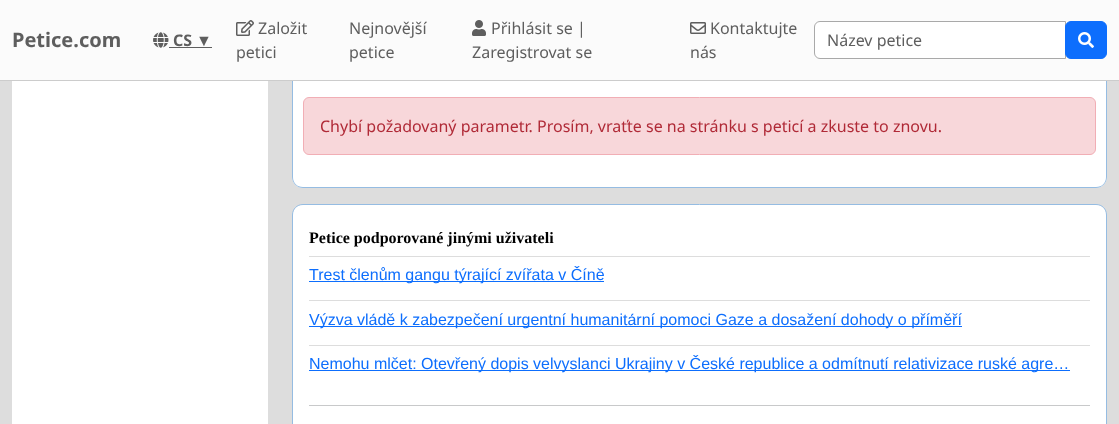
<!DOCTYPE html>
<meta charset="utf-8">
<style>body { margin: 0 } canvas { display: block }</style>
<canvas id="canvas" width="1119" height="424"></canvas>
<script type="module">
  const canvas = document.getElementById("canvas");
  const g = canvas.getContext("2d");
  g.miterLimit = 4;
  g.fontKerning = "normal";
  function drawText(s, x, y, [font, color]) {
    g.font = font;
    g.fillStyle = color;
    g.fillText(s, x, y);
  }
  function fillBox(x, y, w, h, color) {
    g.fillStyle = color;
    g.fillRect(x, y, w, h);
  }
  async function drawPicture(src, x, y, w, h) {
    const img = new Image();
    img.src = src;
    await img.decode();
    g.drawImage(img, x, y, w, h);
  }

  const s1 = ["bold 20px Noto Sans", "#5E5E5E"];
  const s2 = ["bold 16px Noto Sans", "#5E5E5E"];
  const s3 = ["16px Liberation Sans", "#5E5E5E"];
  const s4 = ["16px Noto Sans", "#5E5E5E"];
  const s5 = ["16px Noto Sans", "#B02A37"];
  const s6 = ["bold 16px Liberation Serif", "#000000"];
  const s7 = ["16px Liberation Sans", "#0D6EFD"];

  fillBox(0, 0, 1119, 424, "#DDDDDD");
  fillBox(0, 0, 1119, 80, "#FBFBFB");
  fillBox(0, 80, 1119, 1, "#CCCCCC");
  drawText("Petice.com", 12, 47, s1);
  await drawPicture("pic1.png", 153, 32, 16, 16);
  drawText("CS", 173, 46, s2);
  fillBox(169, 47, 43, 1, "#5E5E5E");
  drawText("▼", 196, 46, s3);
  await drawPicture("pic2.png", 236, 20, 18, 16);
  drawText("Založit", 258, 34, s4);
  drawText("petici", 236, 58, s4);
  drawText("Nejnovější", 349, 34, s4);
  drawText("petice", 349, 58, s4);
  await drawPicture("pic3.png", 472, 20, 14, 16);
  drawText("Přihlásit se |", 491, 34, s4);
  drawText("Zaregistrovat se", 472, 58, s4);
  await drawPicture("pic4.png", 690, 22, 16, 12);
  drawText("Kontaktujte", 710, 34, s4);
  drawText("nás", 690, 58, s4);
  g.fillStyle = "#FFFFFF";
  g.beginPath();
  g.roundRect(814.5, 21.5, 251, 37, [5.5, 0, 0, 5.5]);
  g.fill();
  g.strokeStyle = "#A9A9A9";
  g.stroke();
  drawText("Název petice", 827, 46, s4);
  g.fillStyle = "#0D6EFD";
  g.beginPath();
  g.roundRect(1065.5, 21.5, 41, 37, 5.5);
  g.fill();
  g.strokeStyle = "#0D6EFD";
  g.stroke();
  await drawPicture("pic5.png", 1078, 32, 16, 16);
  fillBox(12, 81, 256, 343, "#FFFFFF");
  g.beginPath();
  g.roundRect(292, 81, 815, 107, [0, 0, 11, 11]);
  g.fill();
  g.fillStyle = "#95BCE2";
  g.beginPath();
  g.moveTo(292, 81);
  g.lineTo(1107, 81);
  g.lineTo(1107, 177);
  g.bezierCurveTo(1107, 183, 1102, 188, 1096, 188);
  g.lineTo(303, 188);
  g.bezierCurveTo(297, 188, 292, 183, 292, 177);
  g.closePath();
  g.moveTo(293, 81);
  g.lineTo(1106, 81);
  g.lineTo(1106, 177);
  g.bezierCurveTo(1106, 183, 1102, 187, 1096, 187);
  g.lineTo(303, 187);
  g.bezierCurveTo(297, 187, 293, 183, 293, 177);
  g.closePath();
  g.fill("evenodd");
  g.fillStyle = "#F8D7DA";
  g.beginPath();
  g.roundRect(303.5, 97.5, 792, 57, 5.5);
  g.fill();
  g.strokeStyle = "#F1AEB5";
  g.stroke();
  drawText("Chybí požadovaný parametr. Prosím, vraťte se na stránku s peticí a zkuste to znovu.", 320, 132, s5);
  g.fillStyle = "#FFFFFF";
  g.beginPath();
  g.moveTo(303, 204.5);
  g.lineTo(1096, 204.5);
  g.bezierCurveTo(1102, 204.5, 1106.5, 209, 1106.5, 215);
  g.lineTo(1106.5, 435.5);
  g.lineTo(292.5, 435.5);
  g.lineTo(292.5, 215);
  g.bezierCurveTo(292.5, 209, 297, 204.5, 303, 204.5);
  g.closePath();
  g.fill();
  g.strokeStyle = "#95BCE2";
  g.stroke();
  drawText("Petice podporované jinými uživateli", 309, 243, s6);
  fillBox(309, 256, 781, 1, "#DDDDDD");
  fillBox(309, 281, 295, 1, "#0D6EFD");
  drawText("Trest členům gangu týrající zvířata v Číně", 309, 280, s7);
  fillBox(309, 300, 781, 1, "#DDDDDD");
  fillBox(309, 326, 653, 1, "#0D6EFD");
  drawText("Výzva vládě k zabezpečení urgentní humanitární pomoci Gaze a dosažení dohody o příměří", 309, 325, s7);
  fillBox(309, 345, 781, 1, "#DDDDDD");
  fillBox(309, 370, 761, 1, "#0D6EFD");
  drawText("Nemohu mlčet: Otevřený dopis velvyslanci Ukrajiny v České republice a odmítnutí relativizace ruské agre…", 309, 369, s7);
  fillBox(309, 405, 781, 1, "#C8C9CA");
</script>
